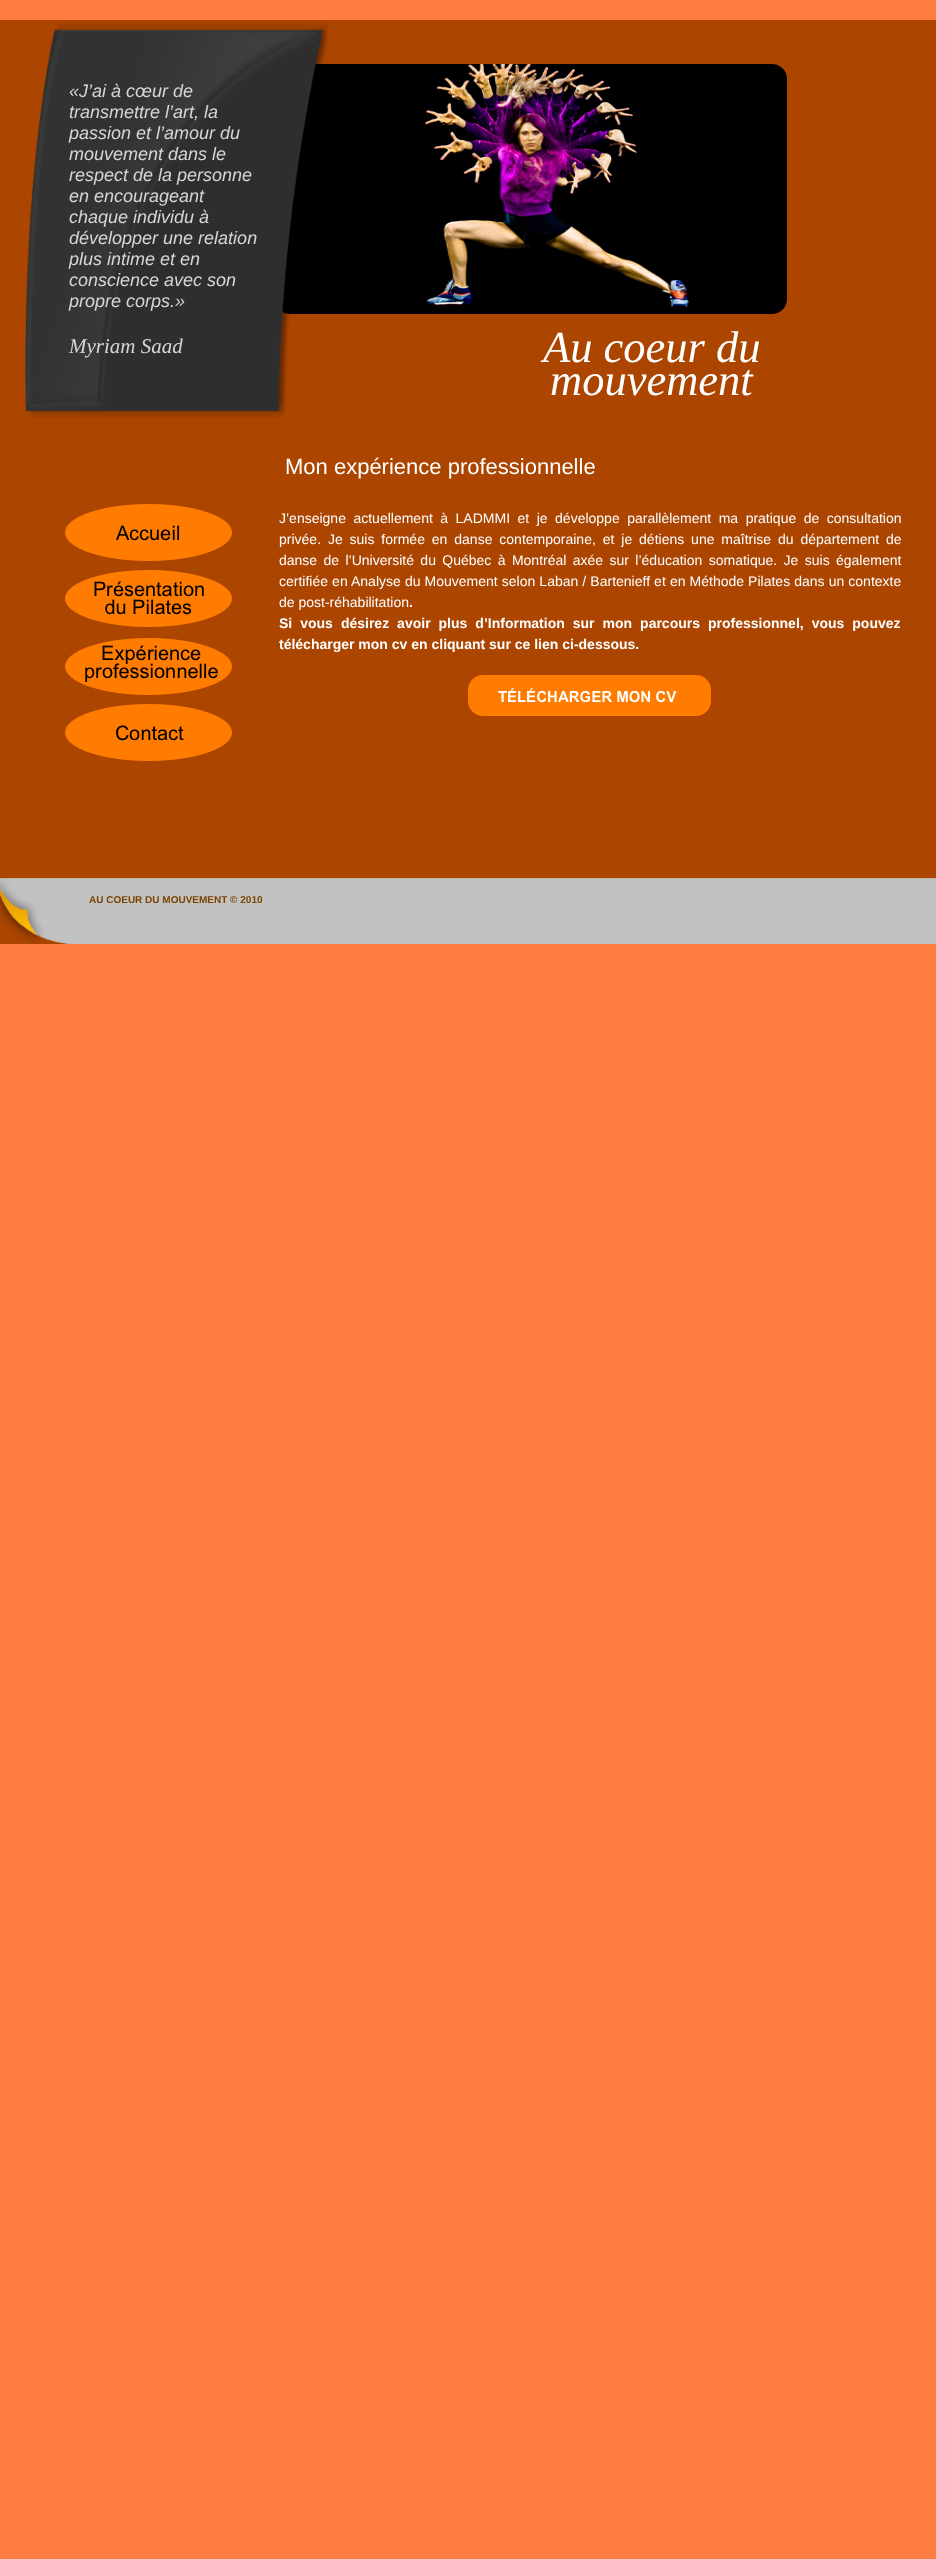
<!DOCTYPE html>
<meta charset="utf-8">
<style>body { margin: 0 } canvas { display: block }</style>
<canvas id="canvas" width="936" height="2559"></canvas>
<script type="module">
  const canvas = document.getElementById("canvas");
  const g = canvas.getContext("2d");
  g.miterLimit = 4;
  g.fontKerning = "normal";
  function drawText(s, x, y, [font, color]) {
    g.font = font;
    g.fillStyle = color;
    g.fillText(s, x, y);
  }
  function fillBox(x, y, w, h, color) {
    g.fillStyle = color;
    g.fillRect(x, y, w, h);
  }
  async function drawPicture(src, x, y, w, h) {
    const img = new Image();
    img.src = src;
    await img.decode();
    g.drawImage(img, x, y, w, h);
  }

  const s1 = ["italic 18px Liberation Sans", "#D6D6D6"];
  const s2 = ["italic 21px Liberation Serif", "#D6D6D6"];
  const s3 = ["italic 44.5px Liberation Serif", "#FFFFFF"];
  const s4 = ["22px Liberation Sans", "#FFFFFF"];
  const s5 = ["14px Liberation Sans", "#FFFFFF"];
  const s6 = ["bold 14px Liberation Sans", "#FFFFFF"];
  const s7 = ["bold 10px Liberation Sans", "#7A4300"];

  fillBox(0, 0, 936, 2559, "#FF7D41");
  fillBox(0, 20, 936, 924, "#AB4500");
  await drawPicture("pic2.png", 281, 64, 506, 250);
  await drawPicture("pic1.png", 25, 23, 304, 395);
  drawText("«J’ai à cœur de", 69, 97, s1);
  drawText("transmettre l’art, la", 69, 118, s1);
  drawText("passion et l’amour du", 69, 139, s1);
  drawText("mouvement dans le", 69, 160, s1);
  drawText("respect de la personne", 69, 181, s1);
  drawText("en encourageant", 69, 202, s1);
  drawText("chaque individu à", 69, 223, s1);
  drawText("développer une relation", 69, 244, s1);
  drawText("plus intime et en", 69, 265, s1);
  drawText("conscience avec son", 69, 286, s1);
  drawText("propre corps.»", 69, 307, s1);
  drawText("Myriam Saad", 69, 353, s2);
  drawText("Au coeur du", 543, 362, s3);
  drawText("mouvement", 550, 395, s3);
  drawText("Mon expérience professionnelle", 285, 474, s4);
  await drawPicture("pic3.png", 65, 504, 167, 57);
  g.wordSpacing = "3.6px";
  drawText("J’enseigne actuellement à LADMMI et je développe parallèlement ma pratique de consultation", 279, 523, s5);
  g.wordSpacing = "3px";
  drawText("privée. Je suis formée en danse contemporaine, et je détiens une maîtrise du département de", 279, 544, s5);
  g.wordSpacing = "2.5px";
  drawText("danse de l’Université du Québec à Montréal axée sur l’éducation somatique. Je suis également", 279, 565, s5);
  g.wordSpacing = "0.2px";
  drawText("certifiée en Analyse du Mouvement selon Laban / Bartenieff et en Méthode Pilates dans un contexte", 279, 586, s5);
  g.wordSpacing = "0px";
  drawText("de post-réhabilitation", 279, 607, s5);
  drawText(".", 409, 607, s6);
  g.wordSpacing = "4.1px";
  drawText("Si vous désirez avoir plus d’Information sur mon parcours professionnel, vous pouvez", 279, 628, s6);
  g.wordSpacing = "0px";
  drawText("télécharger mon cv en cliquant sur ce lien ci-dessous.", 279, 649, s6);
  await drawPicture("pic4.png", 116, 525, 64, 16);
  await drawPicture("pic3.png", 65, 570, 167, 57);
  await drawPicture("pic5.png", 94, 581, 110, 34);
  await drawPicture("pic3.png", 65, 638, 167, 57);
  await drawPicture("pic6.png", 85, 645, 133, 37);
  await drawPicture("pic7.png", 468, 675, 243, 41);
  await drawPicture("pic8.png", 498, 688, 179, 15);
  await drawPicture("pic3.png", 65, 704, 167, 57);
  await drawPicture("pic9.png", 116, 725, 68, 16);
  await drawPicture("pic10.png", 0, 877, 936, 67);
  drawText("AU COEUR DU MOUVEMENT © 2010", 89, 903, s7);
</script>
